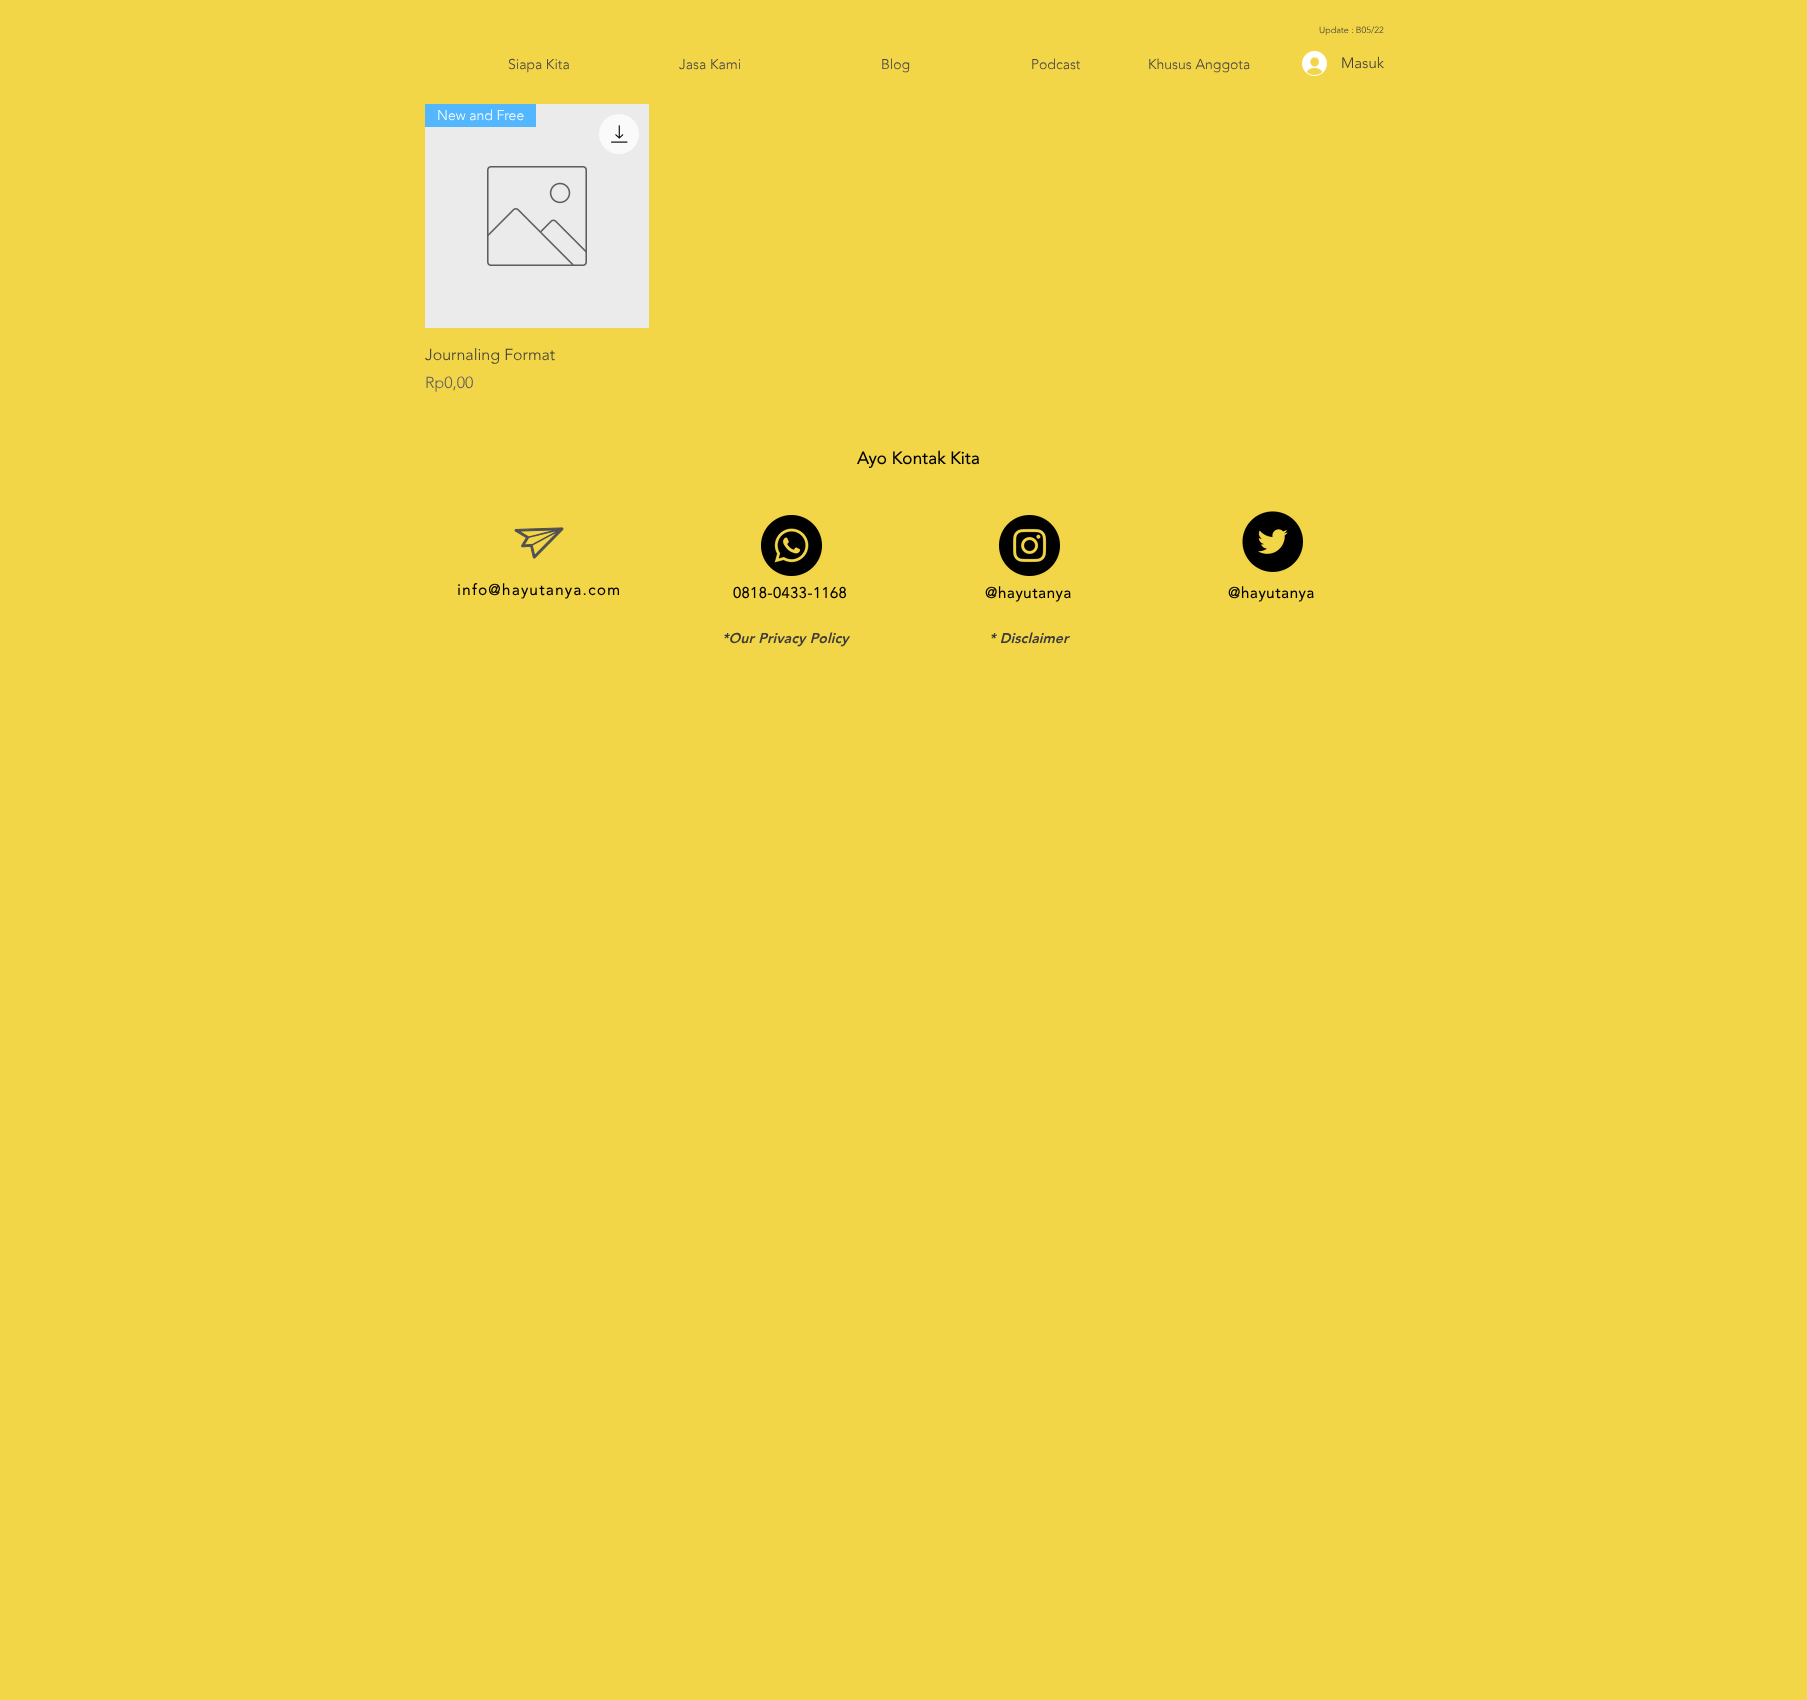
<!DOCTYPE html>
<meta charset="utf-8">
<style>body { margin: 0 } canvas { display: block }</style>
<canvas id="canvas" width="1807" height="1700"></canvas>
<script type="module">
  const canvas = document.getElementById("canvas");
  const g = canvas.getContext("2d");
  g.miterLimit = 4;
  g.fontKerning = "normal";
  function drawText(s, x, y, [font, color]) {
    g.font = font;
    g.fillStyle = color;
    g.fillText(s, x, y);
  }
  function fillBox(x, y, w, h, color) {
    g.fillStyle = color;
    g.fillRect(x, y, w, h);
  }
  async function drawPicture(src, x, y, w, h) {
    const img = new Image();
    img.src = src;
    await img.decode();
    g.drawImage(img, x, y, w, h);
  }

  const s1 = ["300 9px 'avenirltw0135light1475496'", "#3B3B3B"];
  const s2 = ["300 14px 'avenirltw0135light1475496'", "#444444"];
  const s3 = ["300 15px 'avenirltw0135light1475496'", "#3B3B3B"];
  const s4 = ["300 14px 'avenirltw0135light1475496'", "#FFFFFF"];
  const s5 = ["300 16px 'avenirltw0135light1475496'", "#3B3B3B"];
  const s6 = ["300 16px 'avenirltw0135light1475496'", "#5E5E5E"];
  const s7 = ["bold 17px 'avenirltw0135light1475496'", "#000000"];
  const s8 = ["bold 15px 'avenirltw0135light1475496'", "#000000"];
  const s9 = ["italic 900 14px 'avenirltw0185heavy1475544'", "#3B3B3B"];

  fillBox(0, 0, 1807, 1700, "#F3D548");
  drawText("Update : B05/22", 1319, 33, s1);
  drawText("Siapa Kita", 508, 69, s2);
  drawText("Jasa Kami", 679, 69, s2);
  drawText("Blog", 881, 69, s2);
  drawText("Podcast", 1031, 69, s2);
  drawText("Khusus Anggota", 1148, 69, s2);
  await drawPicture("pic1.png", 1302, 51, 25, 25);
  drawText("Masuk", 1341, 68, s3);
  fillBox(425, 104, 224, 224, "#EBEBEB");
  await drawPicture("pic2.png", 487, 166, 100, 100);
  fillBox(425, 104, 111, 23, "#52B7FF");
  drawText("New and Free", 437, 120, s4);
  g.fillStyle = "#FAFAFA";
  g.beginPath();
  g.arc(619, 134, 20, 0, Math.PI * 2);
  g.fill();
  await drawPicture("pic3.png", 611, 125, 17, 18);
  drawText("Journaling Format", 425, 360, s5);
  drawText("Rp0,00", 425, 388, s6);
  g.letterSpacing = "0.2px";
  drawText("Ayo Kontak Kita", 857, 464, s7);
  await drawPicture("pic4.png", 514, 527, 50, 32);
  g.letterSpacing = "1.5px";
  drawText("info@hayutanya.com", 457, 595, s8);
  await drawPicture("pic5.png", 761, 515, 61, 61);
  g.letterSpacing = "0.75px";
  drawText("0818-0433-1168", 733, 598, s8);
  await drawPicture("pic6.png", 999, 515, 61, 61);
  drawText("@hayutanya", 985, 598, s8);
  await drawPicture("pic7.png", 1242, 511, 61, 61);
  drawText("@hayutanya", 1228, 598, s8);
  g.letterSpacing = "0.1px";
  drawText("*Our Privacy Policy", 722, 643, s9);
  drawText("* Disclaimer", 989, 643, s9);
</script>
